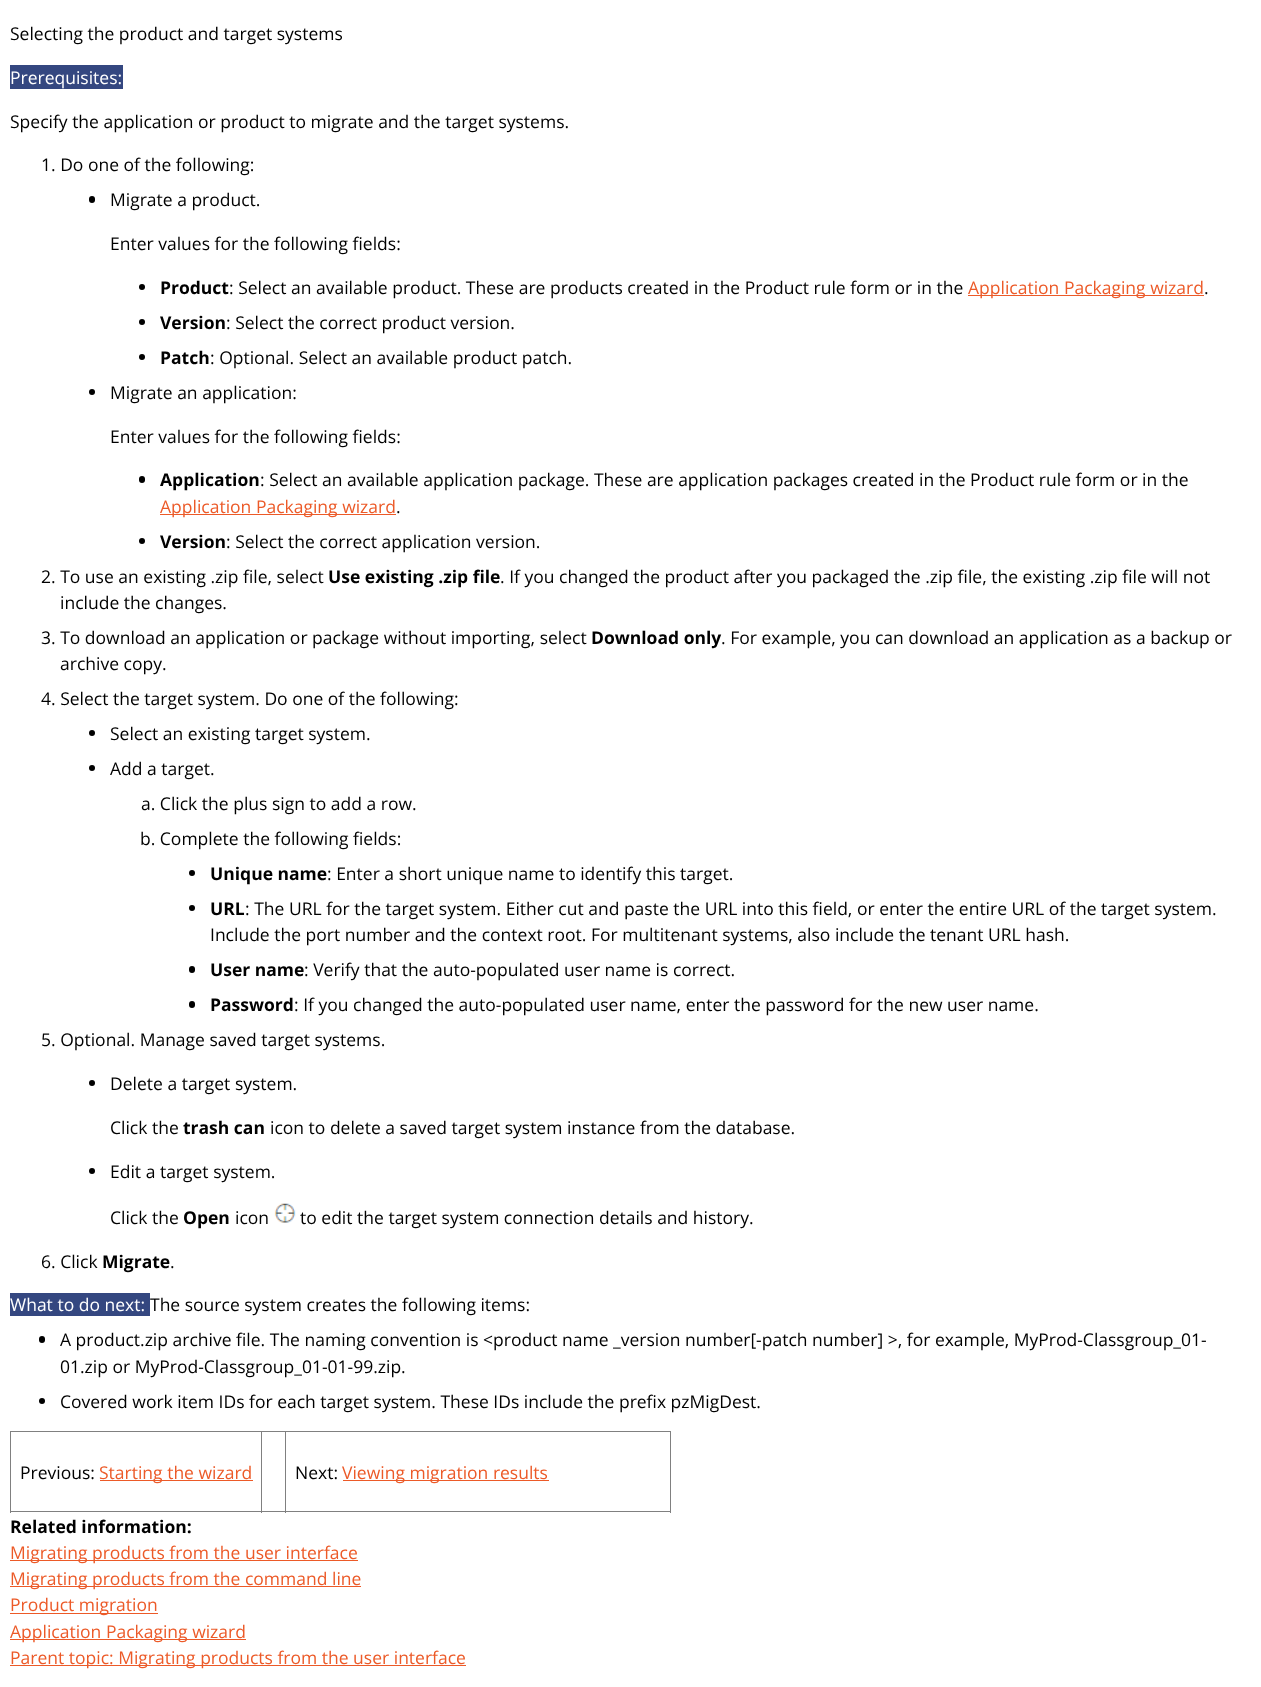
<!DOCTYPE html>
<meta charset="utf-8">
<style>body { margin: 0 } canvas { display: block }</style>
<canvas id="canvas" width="1261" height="1687"></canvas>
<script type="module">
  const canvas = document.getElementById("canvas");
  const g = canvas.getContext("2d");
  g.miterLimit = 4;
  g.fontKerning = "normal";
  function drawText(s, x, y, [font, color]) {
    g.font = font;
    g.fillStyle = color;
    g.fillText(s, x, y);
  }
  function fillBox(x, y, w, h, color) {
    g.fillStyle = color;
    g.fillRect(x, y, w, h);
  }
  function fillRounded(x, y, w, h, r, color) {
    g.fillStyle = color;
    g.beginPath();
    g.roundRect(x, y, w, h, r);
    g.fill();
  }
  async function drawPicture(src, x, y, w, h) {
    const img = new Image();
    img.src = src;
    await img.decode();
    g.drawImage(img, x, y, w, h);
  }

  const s1 = ["17.5px Open Sans", "#000000"];
  const s2 = ["17.5px Open Sans", "#FFFFFF"];
  const s3 = ["bold 17.5px Open Sans", "#000000"];
  const s4 = ["17.5px Open Sans", "#EC5A28"];

  fillBox(0, 0, 1261, 1687, "#FFFFFF");
  drawText("Selecting the product and target systems", 10, 40, s1);
  fillBox(10, 65, 113, 24, "#344780");
  drawText("Prerequisites:", 10, 84, s2);
  drawText("Specify the application or product to migrate and the target systems.", 10, 128, s1);
  drawText("1. Do one of the following:", 41, 171, s1);
  fillRounded(89, 196, 6, 7, 3, "#000000");
  drawText("Migrate a product.", 110, 206, s1);
  drawText("Enter values for the following fields:", 110, 250, s1);
  g.beginPath();
  g.arc(142, 287, 3, 0, Math.PI * 2);
  g.fill();
  drawText("Product", 160, 294, s3);
  drawText(": Select an available product. These are products created in the Product rule form or in the", 229, 294, s1);
  fillBox(968, 295, 236, 1, "#EC5A28");
  drawText("Application Packaging wizard", 968, 294, s4);
  drawText(".", 1204, 294, s1);
  g.beginPath();
  g.arc(142, 322, 3, 0, Math.PI * 2);
  g.fill();
  drawText("Version", 160, 329, s3);
  drawText(": Select the correct product version.", 226, 329, s1);
  g.beginPath();
  g.arc(142, 357, 3, 0, Math.PI * 2);
  g.fill();
  drawText("Patch", 160, 364, s3);
  drawText(": Optional. Select an available product patch.", 210, 364, s1);
  g.beginPath();
  g.arc(92, 392, 3, 0, Math.PI * 2);
  g.fill();
  drawText("Migrate an application:", 110, 399, s1);
  drawText("Enter values for the following fields:", 110, 443, s1);
  fillRounded(139, 476, 6, 7, 3, "#000000");
  drawText("Application", 160, 486, s3);
  drawText(": Select an available application package. These are application packages created in the Product rule form or in the", 260, 486, s1);
  fillBox(160, 514, 236, 1, "#EC5A28");
  drawText("Application Packaging wizard", 160, 513, s4);
  drawText(".", 396, 513, s1);
  g.beginPath();
  g.arc(142, 541, 3, 0, Math.PI * 2);
  g.fill();
  drawText("Version", 160, 548, s3);
  drawText(": Select the correct application version.", 226, 548, s1);
  drawText("2. To use an existing .zip file, select", 41, 583, s1);
  drawText("Use existing .zip file", 328, 583, s3);
  drawText(". If you changed the product after you packaged the .zip file, the existing .zip file will not", 500, 583, s1);
  drawText("include the changes.", 60, 609, s1);
  drawText("3. To download an application or package without importing, select", 41, 644, s1);
  drawText("Download only", 591, 644, s3);
  drawText(". For example, you can download an application as a backup or", 721, 644, s1);
  drawText("archive copy.", 60, 670, s1);
  drawText("4. Select the target system. Do one of the following:", 41, 705, s1);
  g.beginPath();
  g.arc(92, 733, 3, 0, Math.PI * 2);
  g.fill();
  drawText("Select an existing target system.", 110, 740, s1);
  g.beginPath();
  g.arc(92, 768, 3, 0, Math.PI * 2);
  g.fill();
  drawText("Add a target.", 110, 775, s1);
  drawText("a. Click the plus sign to add a row.", 141, 810, s1);
  drawText("b. Complete the following fields:", 140, 845, s1);
  g.beginPath();
  g.arc(192, 873, 3, 0, Math.PI * 2);
  g.fill();
  drawText("Unique name", 210, 880, s3);
  drawText(": Enter a short unique name to identify this target.", 327, 880, s1);
  g.beginPath();
  g.arc(192, 908, 3, 0, Math.PI * 2);
  g.fill();
  drawText("URL", 210, 915, s3);
  drawText(": The URL for the target system. Either cut and paste the URL into this field, or enter the entire URL of the target system.", 245, 915, s1);
  drawText("Include the port number and the context root. For multitenant systems, also include the tenant URL hash.", 210, 941, s1);
  fillRounded(189, 966, 6, 7, 3, "#000000");
  drawText("User name", 210, 976, s3);
  drawText(": Verify that the auto-populated user name is correct.", 304, 976, s1);
  fillRounded(189, 1001, 6, 7, 3, "#000000");
  drawText("Password", 210, 1011, s3);
  drawText(": If you changed the auto-populated user name, enter the password for the new user name.", 294, 1011, s1);
  drawText("5. Optional. Manage saved target systems.", 41, 1046, s1);
  g.beginPath();
  g.arc(92, 1083, 3, 0, Math.PI * 2);
  g.fill();
  drawText("Delete a target system.", 110, 1090, s1);
  drawText("Click the", 110, 1134, s1);
  drawText("trash can", 183, 1134, s3);
  drawText("icon to delete a saved target system instance from the database.", 270, 1134, s1);
  g.beginPath();
  g.arc(92, 1171, 3, 0, Math.PI * 2);
  g.fill();
  drawText("Edit a target system.", 110, 1178, s1);
  drawText("Click the", 110, 1224, s1);
  drawText("Open", 183, 1224, s3);
  drawText("icon", 235, 1224, s1);
  await drawPicture("pic1.png", 274, 1203, 22, 20);
  drawText("to edit the target system connection details and history.", 300, 1224, s1);
  drawText("6. Click", 41, 1268, s1);
  drawText("Migrate", 102, 1268, s3);
  drawText(".", 170, 1268, s1);
  fillBox(10, 1293, 140, 23, "#344780");
  drawText("What to do next:", 10, 1311, s2);
  drawText("The source system creates the following items:", 150, 1311, s1);
  fillRounded(39, 1336, 6, 7, 3, "#000000");
  drawText("A product.zip archive file. The naming convention is <product name _version number[-patch number] >, for example, MyProd-Classgroup_01-", 60, 1346, s1);
  drawText("01.zip or MyProd-Classgroup_01-01-99.zip.", 60, 1373, s1);
  g.beginPath();
  g.arc(42, 1401, 3, 0, Math.PI * 2);
  g.fill();
  drawText("Covered work item IDs for each target system. These IDs include the prefix pzMigDest.", 60, 1408, s1);
  fillBox(10, 1431, 661, 1, "#808080");
  fillBox(670, 1431, 1, 82, "#808080");
  fillBox(10, 1511, 661, 1, "#808080");
  fillBox(10, 1431, 1, 82, "#808080");
  drawText("Previous:", 20, 1479, s1);
  fillBox(100, 1480, 153, 1, "#EC5A28");
  drawText("Starting the wizard", 99, 1479, s4);
  fillBox(261, 1431, 1, 82, "#808080");
  fillBox(285, 1431, 1, 82, "#808080");
  drawText("Next:", 295, 1479, s1);
  fillBox(343, 1480, 206, 1, "#EC5A28");
  drawText("Viewing migration results", 342, 1479, s4);
  drawText("Related information:", 10, 1533, s3);
  fillBox(10, 1560, 348, 1, "#EC5A28");
  drawText("Migrating products from the user interface", 10, 1559, s4);
  fillBox(10, 1586, 351, 1, "#EC5A28");
  drawText("Migrating products from the command line", 10, 1585, s4);
  fillBox(10, 1613, 148, 1, "#EC5A28");
  drawText("Product migration", 10, 1611, s4);
  fillBox(10, 1639, 236, 1, "#EC5A28");
  drawText("Application Packaging wizard", 10, 1638, s4);
  fillBox(10, 1665, 456, 1, "#EC5A28");
  drawText("Parent topic: Migrating products from the user interface", 10, 1664, s4);
</script>
